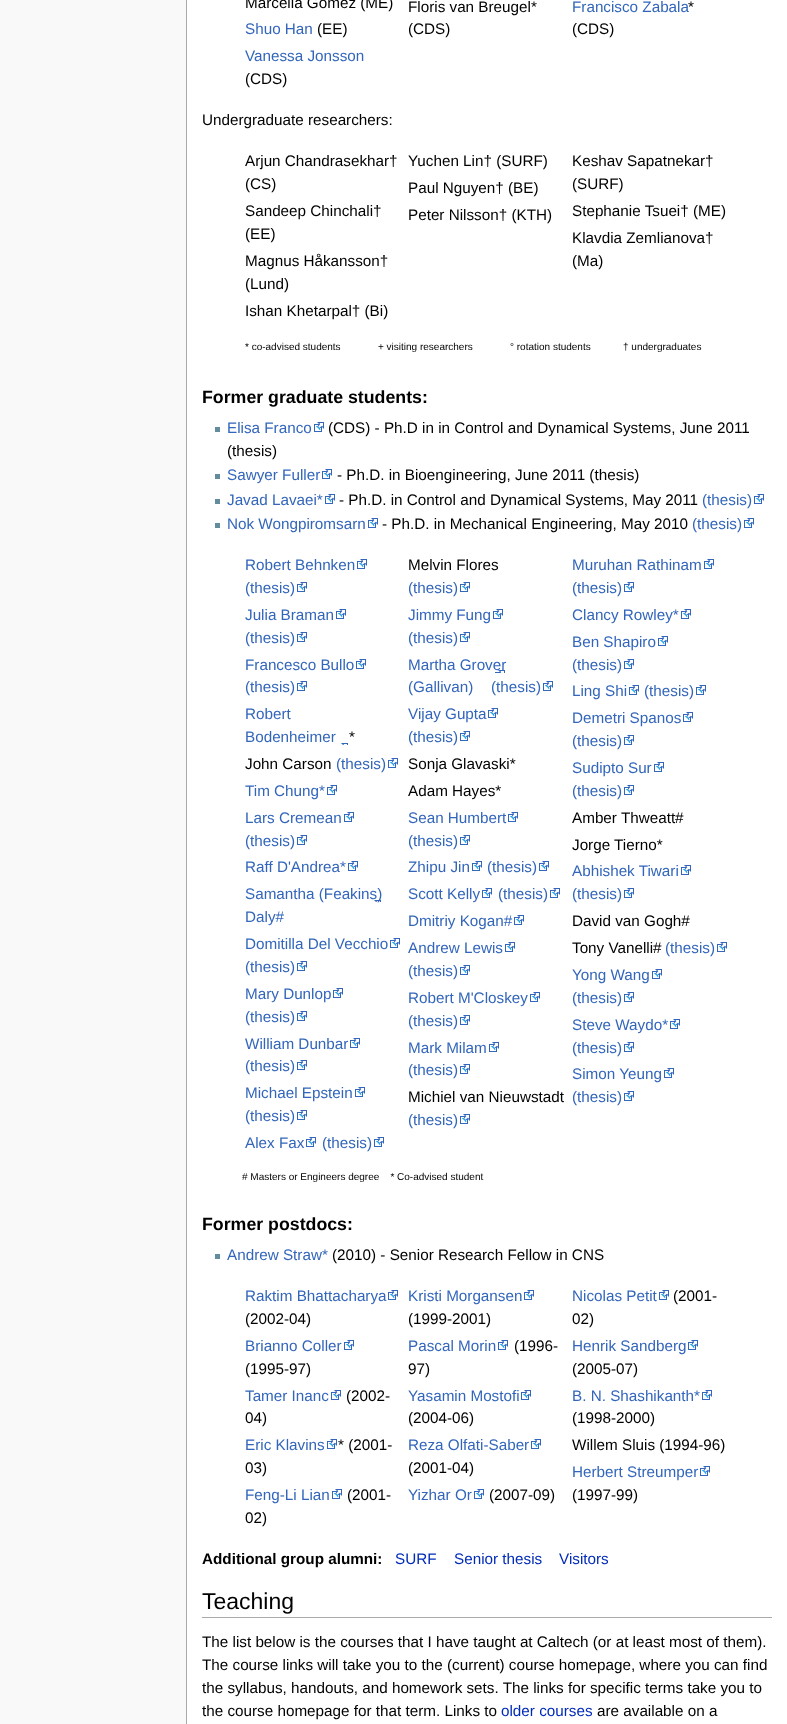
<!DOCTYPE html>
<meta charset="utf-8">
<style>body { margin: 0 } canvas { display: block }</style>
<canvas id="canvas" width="787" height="1724"></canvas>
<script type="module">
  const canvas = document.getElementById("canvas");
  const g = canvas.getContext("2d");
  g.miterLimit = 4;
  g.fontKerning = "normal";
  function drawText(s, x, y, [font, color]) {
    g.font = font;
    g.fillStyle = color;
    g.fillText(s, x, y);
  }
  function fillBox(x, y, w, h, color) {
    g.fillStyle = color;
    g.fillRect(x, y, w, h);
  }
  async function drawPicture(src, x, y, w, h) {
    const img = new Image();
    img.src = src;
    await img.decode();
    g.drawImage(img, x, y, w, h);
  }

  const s1 = ["15.25px Liberation Sans", "#000000"];
  const s2 = ["15.25px Liberation Sans", "#3366BB"];
  const s3 = ["10px Liberation Sans", "#000000"];
  const s4 = ["bold 17.75px Liberation Sans", "#000000"];
  const s5 = ["bold 15.25px Liberation Sans", "#000000"];
  const s6 = ["15.25px Liberation Sans", "#002BB8"];
  const s7 = ["23px Liberation Sans", "#000000"];

  fillBox(0, 0, 787, 1724, "#F9F9F9");
  fillBox(187, 0, 600, 1724, "#FFFFFF");
  fillBox(186, 0, 1, 1724, "#AAAAAA");
  drawText("Marcella Gomez (ME)", 245, 8, s1);
  drawText("Shuo Han", 245, 34, s2);
  drawText("(EE)", 317, 34, s1);
  drawText("Vanessa Jonsson", 245, 61, s2);
  drawText("(CDS)", 245, 84, s1);
  drawText("Floris van Breugel*", 408, 12, s1);
  drawText("(CDS)", 408, 34, s1);
  drawText("Francisco Zabala", 572, 12, s2);
  drawText("*", 688, 12, s1);
  drawText("(CDS)", 572, 34, s1);
  drawText("Undergraduate researchers:", 202, 125, s1);
  drawText("Arjun Chandrasekhar†", 245, 166, s1);
  drawText("(CS)", 245, 189, s1);
  drawText("Sandeep Chinchali†", 245, 216, s1);
  drawText("(EE)", 245, 239, s1);
  drawText("Magnus Håkansson†", 245, 266, s1);
  drawText("(Lund)", 245, 289, s1);
  drawText("Ishan Khetarpal† (Bi)", 245, 316, s1);
  drawText("Yuchen Lin† (SURF)", 408, 166, s1);
  drawText("Paul Nguyen† (BE)", 408, 193, s1);
  drawText("Peter Nilsson† (KTH)", 408, 220, s1);
  drawText("Keshav Sapatnekar†", 572, 166, s1);
  drawText("(SURF)", 572, 189, s1);
  drawText("Stephanie Tsuei† (ME)", 572, 216, s1);
  drawText("Klavdia Zemlianova†", 572, 243, s1);
  drawText("(Ma)", 572, 266, s1);
  drawText("* co-advised students", 245, 350, s3);
  drawText("+ visiting researchers", 378, 350, s3);
  drawText("° rotation students", 510, 350, s3);
  drawText("† undergraduates", 623, 350, s3);
  drawText("Former graduate students:", 202, 403, s4);
  fillBox(215, 427, 5, 5, "#638C9C");
  drawText("Elisa Franco", 227, 433, s2);
  await drawPicture("pic1.png", 314, 422, 10, 10);
  drawText("(CDS) - Ph.D in in Control and Dynamical Systems, June 2011", 328, 433, s1);
  drawText("(thesis)", 227, 456, s1);
  fillBox(215, 474, 5, 5, "#638C9C");
  drawText("Sawyer Fuller", 227, 480, s2);
  await drawPicture("pic1.png", 322, 469, 10, 10);
  drawText("- Ph.D. in Bioengineering, June 2011 (thesis)", 337, 480, s1);
  fillBox(215, 499, 5, 5, "#638C9C");
  drawText("Javad Lavaei*", 227, 505, s2);
  await drawPicture("pic1.png", 325, 494, 10, 10);
  drawText("- Ph.D. in Control and Dynamical Systems, May 2011", 339, 505, s1);
  drawText("(thesis)", 702, 505, s2);
  await drawPicture("pic1.png", 754, 494, 10, 10);
  fillBox(215, 523, 5, 5, "#638C9C");
  drawText("Nok Wongpiromsarn", 227, 529, s2);
  await drawPicture("pic1.png", 368, 518, 10, 10);
  drawText("- Ph.D. in Mechanical Engineering, May 2010", 382, 529, s1);
  drawText("(thesis)", 692, 529, s2);
  await drawPicture("pic1.png", 744, 518, 10, 10);
  drawText("Robert Behnken", 245, 570, s2);
  await drawPicture("pic1.png", 357, 559, 10, 10);
  drawText("(thesis)", 245, 593, s2);
  await drawPicture("pic1.png", 297, 582, 10, 10);
  drawText("Julia Braman", 245, 620, s2);
  await drawPicture("pic1.png", 336, 609, 10, 10);
  drawText("(thesis)", 245, 643, s2);
  await drawPicture("pic1.png", 297, 632, 10, 10);
  drawText("Francesco Bullo", 245, 670, s2);
  await drawPicture("pic1.png", 356, 659, 10, 10);
  drawText("(thesis)", 245, 692, s2);
  await drawPicture("pic1.png", 297, 681, 10, 10);
  drawText("Robert", 245, 719, s2);
  drawText("Bodenheimer", 245, 742, s2);
  drawText("*", 349, 742, s1);
  await drawPicture("pic2.png", 341, 743, 7, 2);
  drawText("John Carson", 245, 769, s1);
  drawText("(thesis)", 336, 769, s2);
  await drawPicture("pic1.png", 388, 758, 10, 10);
  drawText("Tim Chung*", 245, 796, s2);
  await drawPicture("pic1.png", 327, 785, 10, 10);
  drawText("Lars Cremean", 245, 823, s2);
  await drawPicture("pic1.png", 344, 812, 10, 10);
  drawText("(thesis)", 245, 846, s2);
  await drawPicture("pic1.png", 297, 835, 10, 10);
  drawText("Raff D'Andrea*", 245, 872, s2);
  await drawPicture("pic1.png", 348, 861, 10, 10);
  await drawPicture("pic2.png", 374, 900, 7, 2);
  drawText("Samantha (Feakins)", 245, 899, s2);
  drawText("Daly#", 245, 922, s2);
  drawText("Domitilla Del Vecchio", 245, 949, s2);
  await drawPicture("pic1.png", 390, 938, 10, 10);
  drawText("(thesis)", 245, 972, s2);
  await drawPicture("pic1.png", 297, 961, 10, 10);
  drawText("Mary Dunlop", 245, 999, s2);
  await drawPicture("pic1.png", 333, 988, 10, 10);
  drawText("(thesis)", 245, 1022, s2);
  await drawPicture("pic1.png", 297, 1011, 10, 10);
  drawText("William Dunbar", 245, 1049, s2);
  await drawPicture("pic1.png", 350, 1038, 10, 10);
  drawText("(thesis)", 245, 1071, s2);
  await drawPicture("pic1.png", 297, 1060, 10, 10);
  drawText("Michael Epstein", 245, 1098, s2);
  await drawPicture("pic1.png", 355, 1087, 10, 10);
  drawText("(thesis)", 245, 1121, s2);
  await drawPicture("pic1.png", 297, 1110, 10, 10);
  drawText("Alex Fax", 245, 1148, s2);
  await drawPicture("pic1.png", 306, 1137, 10, 10);
  drawText("(thesis)", 322, 1148, s2);
  await drawPicture("pic1.png", 374, 1137, 10, 10);
  drawText("Melvin Flores", 408, 570, s1);
  drawText("(thesis)", 408, 593, s2);
  await drawPicture("pic1.png", 460, 582, 10, 10);
  drawText("Jimmy Fung", 408, 620, s2);
  await drawPicture("pic1.png", 493, 609, 10, 10);
  drawText("(thesis)", 408, 643, s2);
  await drawPicture("pic1.png", 460, 632, 10, 10);
  await drawPicture("pic3.png", 495, 670, 10, 3);
  drawText("Martha Grover", 408, 670, s2);
  drawText("(Gallivan)", 408, 692, s2);
  drawText("(thesis)", 491, 692, s2);
  await drawPicture("pic1.png", 543, 681, 10, 10);
  drawText("Vijay Gupta", 408, 719, s2);
  await drawPicture("pic1.png", 488, 708, 10, 10);
  drawText("(thesis)", 408, 742, s2);
  await drawPicture("pic1.png", 460, 731, 10, 10);
  drawText("Sonja Glavaski*", 408, 769, s1);
  drawText("Adam Hayes*", 408, 796, s1);
  drawText("Sean Humbert", 408, 823, s2);
  await drawPicture("pic1.png", 508, 812, 10, 10);
  drawText("(thesis)", 408, 846, s2);
  await drawPicture("pic1.png", 460, 835, 10, 10);
  drawText("Zhipu Jin", 408, 872, s2);
  await drawPicture("pic1.png", 472, 861, 10, 10);
  drawText("(thesis)", 487, 872, s2);
  await drawPicture("pic1.png", 539, 861, 10, 10);
  drawText("Scott Kelly", 408, 899, s2);
  await drawPicture("pic1.png", 482, 888, 10, 10);
  drawText("(thesis)", 498, 899, s2);
  await drawPicture("pic1.png", 550, 888, 10, 10);
  drawText("Dmitriy Kogan#", 408, 926, s2);
  await drawPicture("pic1.png", 514, 915, 10, 10);
  drawText("Andrew Lewis", 408, 953, s2);
  await drawPicture("pic1.png", 505, 942, 10, 10);
  drawText("(thesis)", 408, 976, s2);
  await drawPicture("pic1.png", 460, 965, 10, 10);
  drawText("Robert M'Closkey", 408, 1003, s2);
  await drawPicture("pic1.png", 530, 992, 10, 10);
  drawText("(thesis)", 408, 1026, s2);
  await drawPicture("pic1.png", 460, 1015, 10, 10);
  drawText("Mark Milam", 408, 1053, s2);
  await drawPicture("pic1.png", 489, 1042, 10, 10);
  drawText("(thesis)", 408, 1075, s2);
  await drawPicture("pic1.png", 460, 1064, 10, 10);
  drawText("Michiel van Nieuwstadt", 408, 1102, s1);
  drawText("(thesis)", 408, 1125, s2);
  await drawPicture("pic1.png", 460, 1114, 10, 10);
  drawText("Muruhan Rathinam", 572, 570, s2);
  await drawPicture("pic1.png", 704, 559, 10, 10);
  drawText("(thesis)", 572, 593, s2);
  await drawPicture("pic1.png", 624, 582, 10, 10);
  drawText("Clancy Rowley*", 572, 620, s2);
  await drawPicture("pic1.png", 681, 609, 10, 10);
  drawText("Ben Shapiro", 572, 647, s2);
  await drawPicture("pic1.png", 658, 636, 10, 10);
  drawText("(thesis)", 572, 670, s2);
  await drawPicture("pic1.png", 624, 659, 10, 10);
  drawText("Ling Shi", 572, 696, s2);
  await drawPicture("pic1.png", 629, 685, 10, 10);
  drawText("(thesis)", 644, 696, s2);
  await drawPicture("pic1.png", 696, 685, 10, 10);
  drawText("Demetri Spanos", 572, 723, s2);
  await drawPicture("pic1.png", 683, 712, 10, 10);
  drawText("(thesis)", 572, 746, s2);
  await drawPicture("pic1.png", 624, 735, 10, 10);
  drawText("Sudipto Sur", 572, 773, s2);
  await drawPicture("pic1.png", 654, 762, 10, 10);
  drawText("(thesis)", 572, 796, s2);
  await drawPicture("pic1.png", 624, 785, 10, 10);
  drawText("Amber Thweatt#", 572, 823, s1);
  drawText("Jorge Tierno*", 572, 850, s1);
  drawText("Abhishek Tiwari", 572, 876, s2);
  await drawPicture("pic1.png", 681, 865, 10, 10);
  drawText("(thesis)", 572, 899, s2);
  await drawPicture("pic1.png", 624, 888, 10, 10);
  drawText("David van Gogh#", 572, 926, s1);
  drawText("Tony Vanelli#", 572, 953, s1);
  drawText("(thesis)", 665, 953, s2);
  await drawPicture("pic1.png", 717, 942, 10, 10);
  drawText("Yong Wang", 572, 980, s2);
  await drawPicture("pic1.png", 652, 969, 10, 10);
  drawText("(thesis)", 572, 1003, s2);
  await drawPicture("pic1.png", 624, 992, 10, 10);
  drawText("Steve Waydo*", 572, 1030, s2);
  await drawPicture("pic1.png", 670, 1019, 10, 10);
  drawText("(thesis)", 572, 1053, s2);
  await drawPicture("pic1.png", 624, 1042, 10, 10);
  drawText("Simon Yeung", 572, 1079, s2);
  await drawPicture("pic1.png", 664, 1068, 10, 10);
  drawText("(thesis)", 572, 1102, s2);
  await drawPicture("pic1.png", 624, 1091, 10, 10);
  drawText("# Masters or Engineers degree    * Co-advised student", 242, 1180, s3);
  drawText("Former postdocs:", 202, 1230, s4);
  fillBox(215, 1254, 5, 5, "#638C9C");
  drawText("Andrew Straw*", 227, 1260, s2);
  drawText("(2010) - Senior Research Fellow in CNS", 332, 1260, s1);
  drawText("Raktim Bhattacharya", 245, 1301, s2);
  await drawPicture("pic1.png", 388, 1290, 10, 10);
  drawText("(2002-04)", 245, 1324, s1);
  drawText("Brianno Coller", 245, 1351, s2);
  await drawPicture("pic1.png", 344, 1340, 10, 10);
  drawText("(1995-97)", 245, 1374, s1);
  drawText("Tamer Inanc", 245, 1401, s2);
  await drawPicture("pic1.png", 331, 1390, 10, 10);
  drawText("(2002-", 346, 1401, s1);
  drawText("04)", 245, 1423, s1);
  drawText("Eric Klavins", 245, 1450, s2);
  await drawPicture("pic1.png", 327, 1439, 10, 10);
  drawText("* (2001-", 338, 1450, s1);
  drawText("03)", 245, 1473, s1);
  drawText("Feng-Li Lian", 245, 1500, s2);
  await drawPicture("pic1.png", 332, 1489, 10, 10);
  drawText("(2001-", 347, 1500, s1);
  drawText("02)", 245, 1523, s1);
  drawText("Kristi Morgansen", 408, 1301, s2);
  await drawPicture("pic1.png", 524, 1290, 10, 10);
  drawText("(1999-2001)", 408, 1324, s1);
  drawText("Pascal Morin", 408, 1351, s2);
  await drawPicture("pic1.png", 498, 1340, 10, 10);
  drawText("(1996-", 514, 1351, s1);
  drawText("97)", 408, 1374, s1);
  drawText("Yasamin Mostofi", 408, 1401, s2);
  await drawPicture("pic1.png", 521, 1390, 10, 10);
  drawText("(2004-06)", 408, 1423, s1);
  drawText("Reza Olfati-Saber", 408, 1450, s2);
  await drawPicture("pic1.png", 531, 1439, 10, 10);
  drawText("(2001-04)", 408, 1473, s1);
  drawText("Yizhar Or", 408, 1500, s2);
  await drawPicture("pic1.png", 474, 1489, 10, 10);
  drawText("(2007-09)", 489, 1500, s1);
  drawText("Nicolas Petit", 572, 1301, s2);
  await drawPicture("pic1.png", 659, 1290, 10, 10);
  drawText("(2001-", 673, 1301, s1);
  drawText("02)", 572, 1324, s1);
  drawText("Henrik Sandberg", 572, 1351, s2);
  await drawPicture("pic1.png", 688, 1340, 10, 10);
  drawText("(2005-07)", 572, 1374, s1);
  drawText("B. N. Shashikanth*", 572, 1401, s2);
  await drawPicture("pic1.png", 702, 1390, 10, 10);
  drawText("(1998-2000)", 572, 1423, s1);
  drawText("Willem Sluis (1994-96)", 572, 1450, s1);
  drawText("Herbert Streumper", 572, 1477, s2);
  await drawPicture("pic1.png", 700, 1466, 10, 10);
  drawText("(1997-99)", 572, 1500, s1);
  drawText("Additional group alumni:", 202, 1564, s5);
  drawText("SURF", 395, 1564, s6);
  drawText("Senior thesis", 454, 1564, s6);
  drawText("Visitors", 559, 1564, s6);
  fillBox(202, 1617, 570, 1, "#AAAAAA");
  drawText("Teaching", 202, 1609, s7);
  drawText("The list below is the courses that I have taught at Caltech (or at least most of them).", 202, 1647, s1);
  drawText("The course links will take you to the (current) course homepage, where you can find", 202, 1670, s1);
  drawText("the syllabus, handouts, and homework sets. The links for specific terms take you to", 202, 1693, s1);
  drawText("the course homepage for that term. Links to", 202, 1716, s1);
  drawText("older courses", 501, 1716, s6);
  drawText("are available on a", 597, 1716, s1);
</script>
